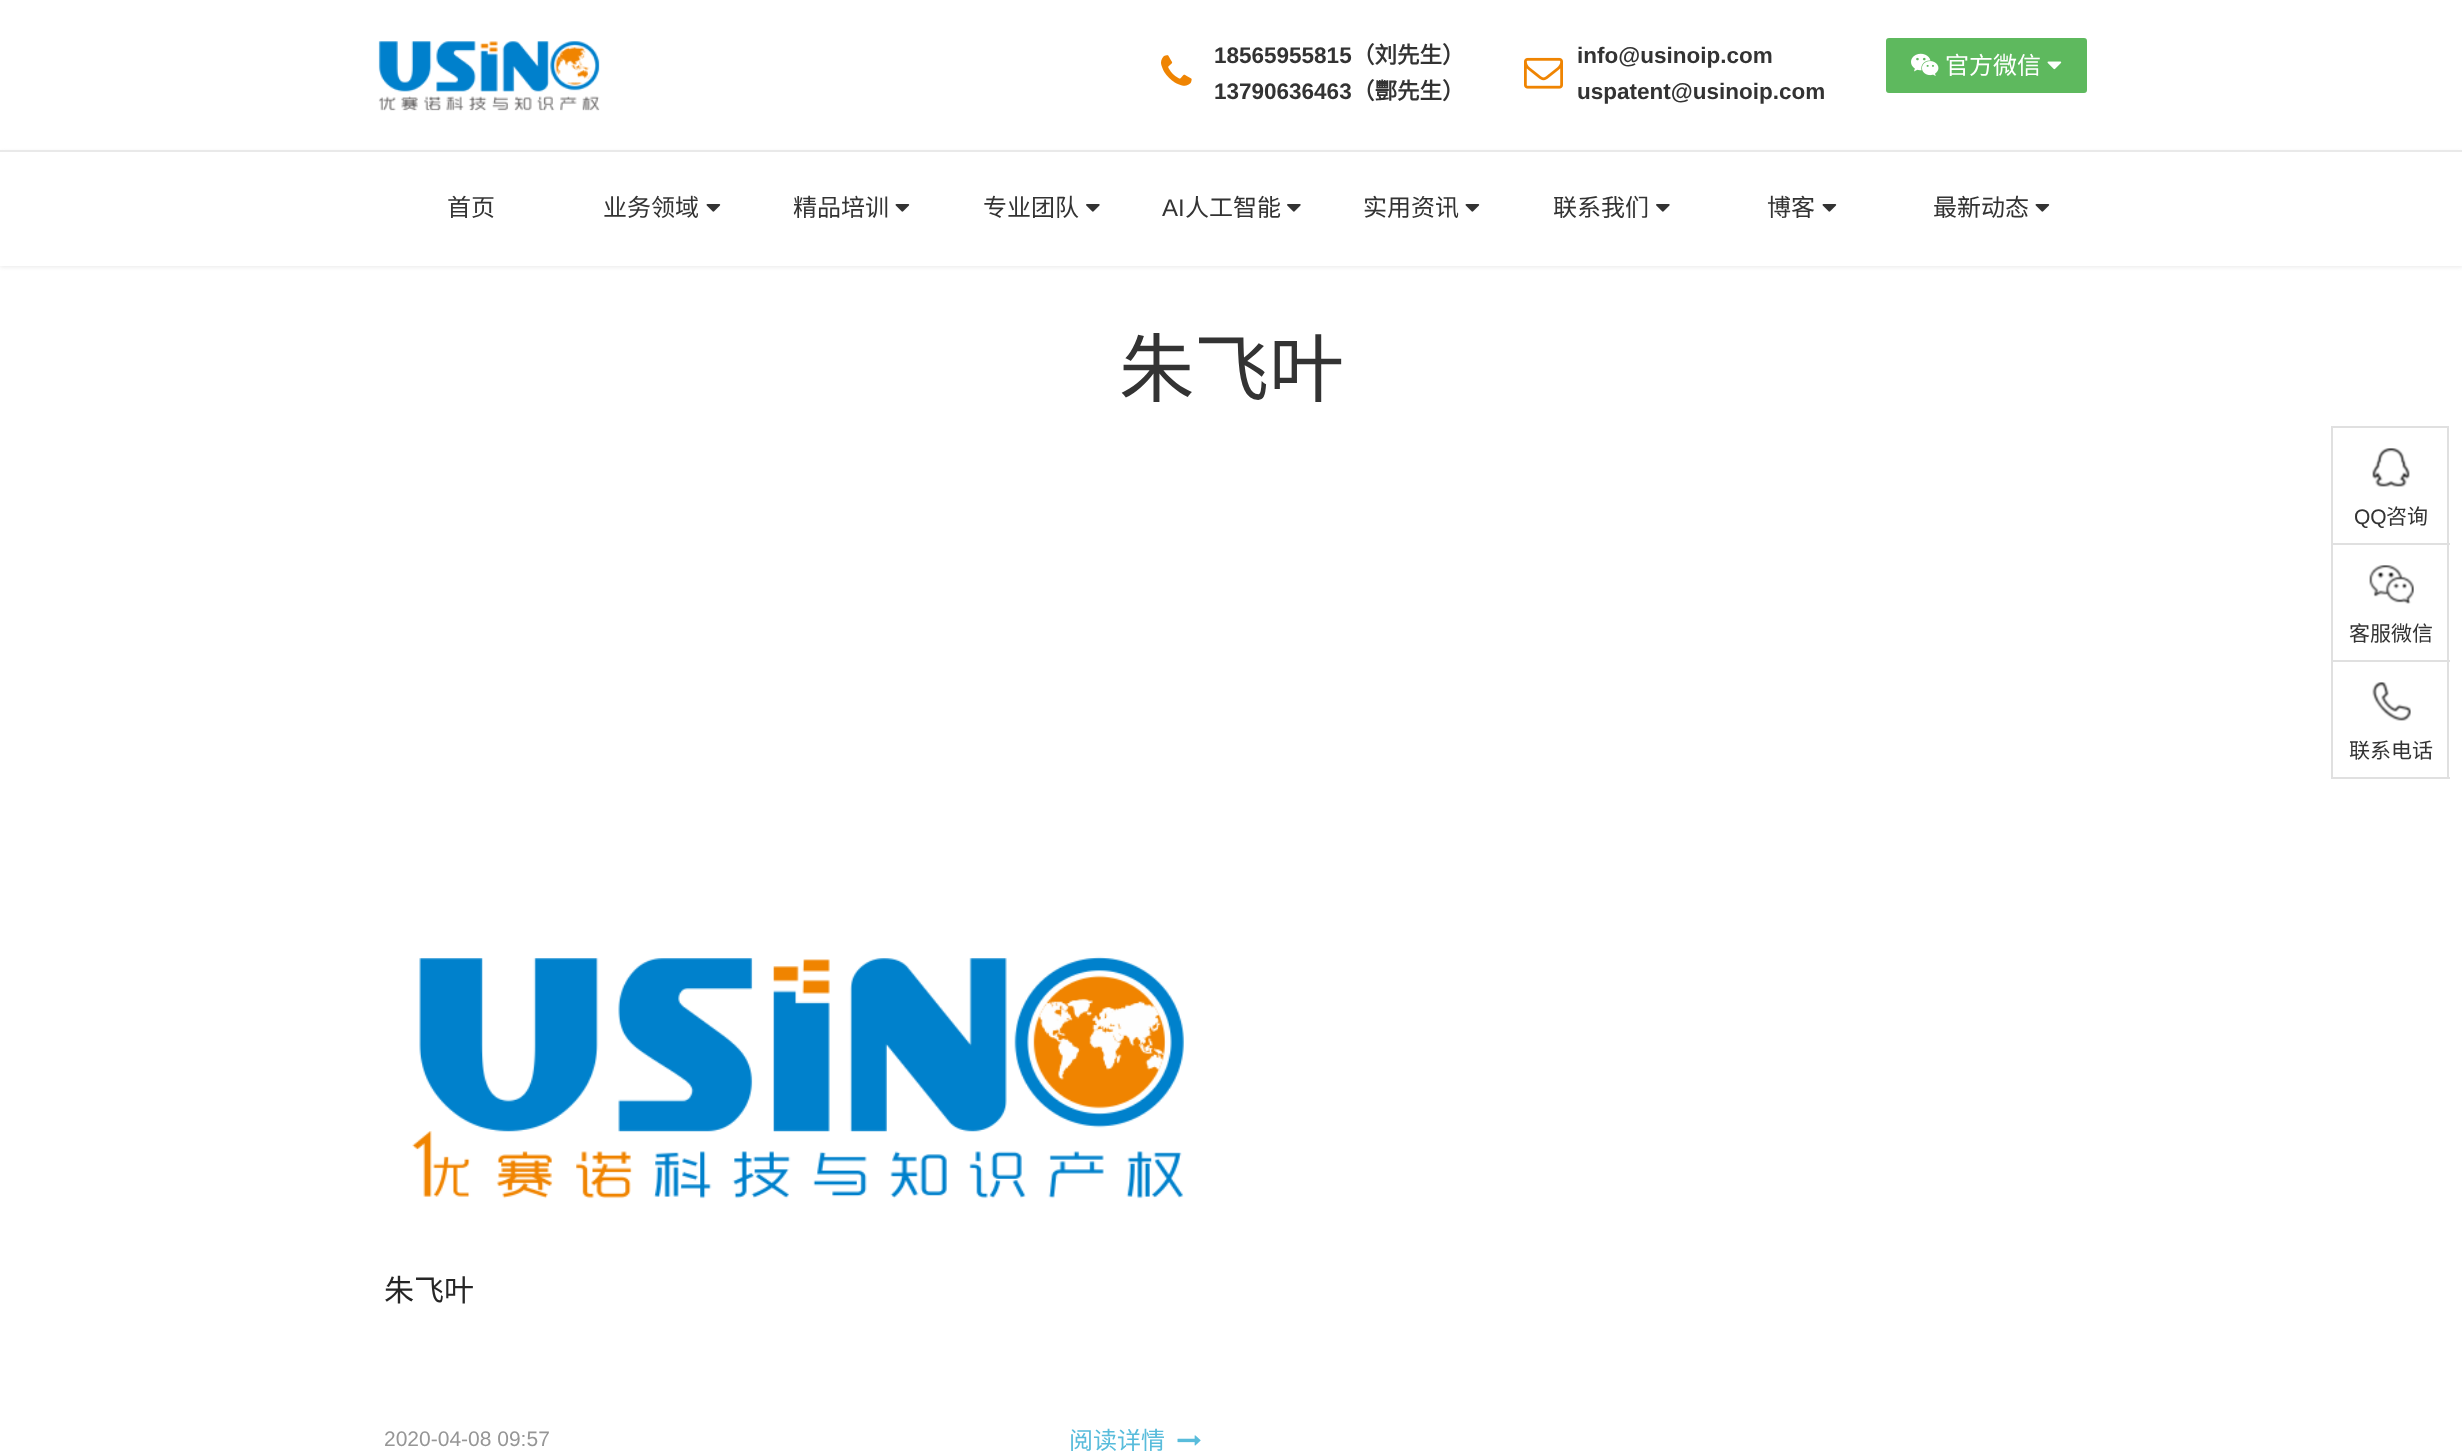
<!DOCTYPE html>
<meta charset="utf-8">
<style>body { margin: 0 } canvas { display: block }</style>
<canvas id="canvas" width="2462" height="1452"></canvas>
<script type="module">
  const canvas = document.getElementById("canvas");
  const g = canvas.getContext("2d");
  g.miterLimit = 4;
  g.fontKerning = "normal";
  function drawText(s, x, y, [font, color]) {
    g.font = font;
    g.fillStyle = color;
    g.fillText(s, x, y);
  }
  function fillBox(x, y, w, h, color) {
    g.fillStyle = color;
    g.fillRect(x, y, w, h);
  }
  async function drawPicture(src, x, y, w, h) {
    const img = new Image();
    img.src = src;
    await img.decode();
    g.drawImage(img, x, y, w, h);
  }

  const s1 = ["bold 22.5px Liberation Sans", "#333333"];
  const s2 = ["bold 22.5px Noto Sans CJK SC", "#333333"];
  const s3 = ["24px Noto Sans CJK SC", "#FFFFFF"];
  const s4 = ["24px Noto Sans CJK SC", "#333333"];
  const s5 = ["24px Liberation Sans", "#333333"];
  const s6 = ["75px Noto Sans CJK SC", "#333333"];
  const s7 = ["30px Noto Sans CJK SC", "#262626"];
  const s8 = ["21px Liberation Sans", "#969696"];
  const s9 = ["24px Noto Sans CJK SC", "#59BCDB"];
  const s10 = ["21px Liberation Sans", "#333333"];
  const s11 = ["21px Noto Sans CJK SC", "#333333"];

  fillBox(0, 0, 2462, 1452, "#FFFFFF");
  await drawPicture("pic1.png", 378, 41, 222, 70);
  await drawPicture("pic2.png", 1161, 55, 31, 31);
  drawText("18565955815", 1214, 63, s1);
  drawText("（刘先生）", 1352, 63, s2);
  drawText("13790636463", 1214, 99, s1);
  drawText("（酆先生）", 1352, 99, s2);
  await drawPicture("pic3.png", 1524, 57, 39, 32);
  drawText("info@usinoip.com", 1577, 63, s1);
  drawText("uspatent@usinoip.com", 1577, 99, s1);
  g.fillStyle = "#5EB95E";
  g.beginPath();
  g.roundRect(1887, 39, 199, 53, 2);
  g.fill();
  g.strokeStyle = "#5EB95E";
  g.lineWidth = 2;
  g.stroke();
  await drawPicture("pic4.png", 1911, 53, 28, 23);
  drawText("官方微信", 1945, 74, s3);
  await drawPicture("pic5.png", 2047, 61, 15, 9);
  g.fillStyle = "#E9E9E9";
  g.filter = "blur(2px)";
  g.beginPath();
  g.rect(0, 152, 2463, 115);
  g.fill();
  g.filter = "none";
  fillBox(0, 152, 2462, 114, "#FFFFFF");
  fillBox(0, 150, 2462, 2, "#E9E9E9");
  drawText("首页", 447, 216, s4);
  drawText("业务领域", 603, 216, s4);
  await drawPicture("pic6.png", 706, 204, 15, 8);
  drawText("精品培训", 793, 216, s4);
  await drawPicture("pic6.png", 895, 204, 15, 8);
  drawText("专业团队", 983, 216, s4);
  await drawPicture("pic7.png", 1086, 204, 14, 8);
  drawText("AI", 1162, 216, s5);
  drawText("人工智能", 1185, 216, s4);
  await drawPicture("pic7.png", 1287, 204, 14, 8);
  drawText("实用资讯", 1363, 216, s4);
  await drawPicture("pic6.png", 1465, 204, 15, 8);
  drawText("联系我们", 1553, 216, s4);
  await drawPicture("pic7.png", 1656, 204, 14, 8);
  drawText("博客", 1767, 216, s4);
  await drawPicture("pic6.png", 1822, 204, 15, 8);
  drawText("最新动态", 1933, 216, s4);
  await drawPicture("pic6.png", 2035, 204, 15, 8);
  drawText("朱飞叶", 1119, 396, s6);
  await drawPicture("pic8.png", 412, 956, 772, 243);
  drawText("朱飞叶", 384, 1301, s7);
  drawText("2020-04-08 09:57", 384, 1446, s8);
  drawText("阅读详情", 1069, 1449, s9);
  await drawPicture("pic9.png", 1177, 1435, 24, 11);
  fillBox(2331, 426, 117, 2, "#E0E0E0");
  fillBox(2447, 426, 2, 353, "#E0E0E0");
  fillBox(2331, 426, 2, 353, "#E0E0E0");
  fillBox(2333, 543, 117, 2, "#E0E0E0");
  await drawPicture("pic10.png", 2372, 448, 38, 39);
  drawText("QQ", 2354, 524, s10);
  drawText("咨询", 2386, 524, s11);
  fillBox(2333, 660, 117, 2, "#E0E0E0");
  await drawPicture("pic11.png", 2369, 565, 45, 39);
  drawText("客服微信", 2349, 641, s11);
  fillBox(2333, 777, 117, 2, "#E0E0E0");
  await drawPicture("pic12.png", 2372, 682, 39, 39);
  drawText("联系电话", 2349, 758, s11);
</script>
